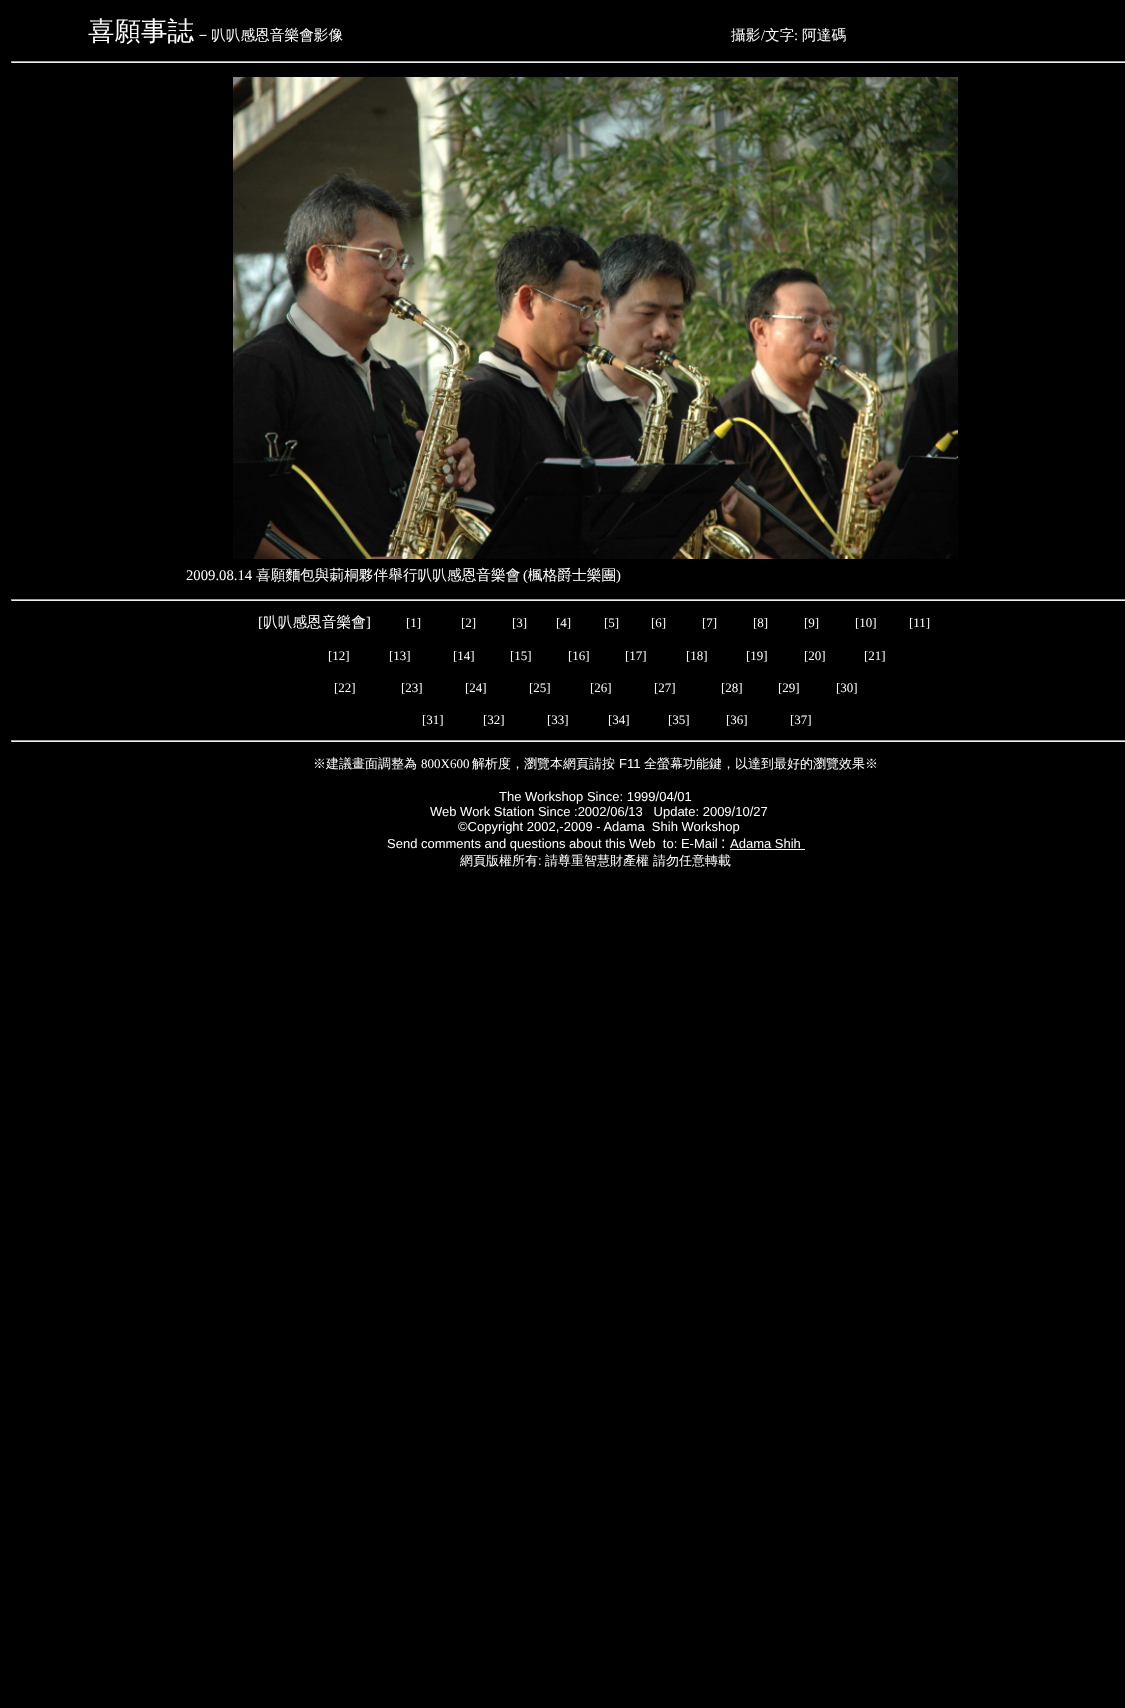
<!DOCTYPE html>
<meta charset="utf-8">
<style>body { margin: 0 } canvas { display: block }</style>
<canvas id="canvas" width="1125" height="1708"></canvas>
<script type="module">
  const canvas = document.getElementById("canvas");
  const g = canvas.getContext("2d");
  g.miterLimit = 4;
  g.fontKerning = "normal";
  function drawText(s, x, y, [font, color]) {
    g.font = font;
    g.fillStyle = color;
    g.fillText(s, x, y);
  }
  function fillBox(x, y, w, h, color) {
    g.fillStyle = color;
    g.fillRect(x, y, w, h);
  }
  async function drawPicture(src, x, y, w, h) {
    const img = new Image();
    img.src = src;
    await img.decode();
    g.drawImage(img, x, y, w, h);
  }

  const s1 = ["500 26.5px WenQuanYi Zen Hei", "#FFFFFF"];
  const s2 = ["500 16px WenQuanYi Zen Hei", "#FFFFFF"];
  const s3 = ["500 14.7px WenQuanYi Zen Hei", "#FFFFFF"];
  const s4 = ["14.7px Liberation Serif", "#FFFFFF"];
  const s5 = ["13px Liberation Serif", "#FFFFFF"];
  const s6 = ["500 13px WenQuanYi Zen Hei", "#FFFFFF"];
  const s7 = ["13px Liberation Sans", "#FFFFFF"];
  const s8 = ["16px Liberation Sans", "#FFFFFF"];

  fillBox(0, 0, 1125, 1708, "#000000");
  drawText("喜願事誌", 88, 40, s1);
  drawText("－", 195, 40, s2);
  drawText("叭叭感恩音樂會影像", 211, 40, s3);
  drawText("攝影", 731, 40, s3);
  drawText("/", 761, 40, s4);
  drawText("文字", 765, 40, s3);
  drawText(":", 794, 40, s4);
  drawText("阿達碼", 802, 40, s3);
  fillBox(11, 61, 1114, 1, "#9F9F9F");
  fillBox(11, 62, 1114, 1, "#EEEEEE");
  fillBox(11, 61, 1, 2, "#9F9F9F");
  await drawPicture("pic1.png", 233, 77, 725, 482);
  drawText("2009.08.14", 186, 580, s4);
  drawText("喜願麵包與莿桐夥伴舉行叭叭感恩音樂會", 256, 580, s3);
  drawText("(", 523, 580, s4);
  drawText("楓格爵士樂團", 528, 580, s3);
  drawText(")", 616, 580, s4);
  fillBox(11, 599, 1114, 1, "#9F9F9F");
  fillBox(11, 600, 1114, 1, "#EEEEEE");
  fillBox(11, 599, 1, 2, "#9F9F9F");
  drawText("[", 258, 627, s4);
  drawText("叭叭感恩音樂會", 263, 627, s3);
  drawText("]", 366, 627, s4);
  drawText("[1]", 406, 627, s5);
  drawText("[2]", 461, 627, s5);
  drawText("[3]", 512, 627, s5);
  drawText("[4]", 556, 627, s5);
  drawText("[5]", 604, 627, s5);
  drawText("[6]", 651, 627, s5);
  drawText("[7]", 702, 627, s5);
  drawText("[8]", 753, 627, s5);
  drawText("[9]", 804, 627, s5);
  drawText("[10]", 855, 627, s5);
  drawText("[11]", 909, 627, s5);
  drawText("[12]", 328, 660, s5);
  drawText("[13]", 389, 660, s5);
  drawText("[14]", 453, 660, s5);
  drawText("[15]", 510, 660, s5);
  drawText("[16]", 568, 660, s5);
  drawText("[17]", 625, 660, s5);
  drawText("[18]", 686, 660, s5);
  drawText("[19]", 746, 660, s5);
  drawText("[20]", 804, 660, s5);
  drawText("[21]", 864, 660, s5);
  drawText("[22]", 334, 692, s5);
  drawText("[23]", 401, 692, s5);
  drawText("[24]", 465, 692, s5);
  drawText("[25]", 529, 692, s5);
  drawText("[26]", 590, 692, s5);
  drawText("[27]", 654, 692, s5);
  drawText("[28]", 721, 692, s5);
  drawText("[29]", 778, 692, s5);
  drawText("[30]", 836, 692, s5);
  drawText("[31]", 422, 724, s5);
  drawText("[32]", 483, 724, s5);
  drawText("[33]", 547, 724, s5);
  drawText("[34]", 608, 724, s5);
  drawText("[35]", 668, 724, s5);
  drawText("[36]", 726, 724, s5);
  drawText("[37]", 790, 724, s5);
  fillBox(11, 740, 1114, 1, "#9F9F9F");
  fillBox(11, 741, 1114, 1, "#EEEEEE");
  fillBox(11, 740, 1, 2, "#9F9F9F");
  drawText("※建議畫面調整為", 313, 768, s6);
  drawText("800X600", 421, 768, s5);
  drawText("解析度，瀏覽本網頁請按", 472, 768, s6);
  drawText("F11", 619, 768, s7);
  drawText("全螢幕功能鍵，以達到最好的瀏覽效果※", 644, 768, s6);
  drawText("The Workshop Since: 1999/04/01", 499, 801, s7);
  drawText("Web Work Station Since :2002/06/13   Update: 2009/10/27", 430, 816, s7);
  drawText("©Copyright 2002,-2009 - Adama  Shih Workshop", 458, 831, s7);
  drawText("Send comments and questions about this Web  to: E-Mail", 387, 848, s7);
  drawText(":", 721, 848, s8);
  drawText("Adama Shih", 730, 848, s7);
  fillBox(730, 849, 75, 1, "#FFFFFF");
  drawText("網頁版權所有", 460, 865, s6);
  drawText(":", 538, 865, s7);
  drawText("請尊重智慧財產權 請勿任意轉載", 545, 865, s6);
</script>
